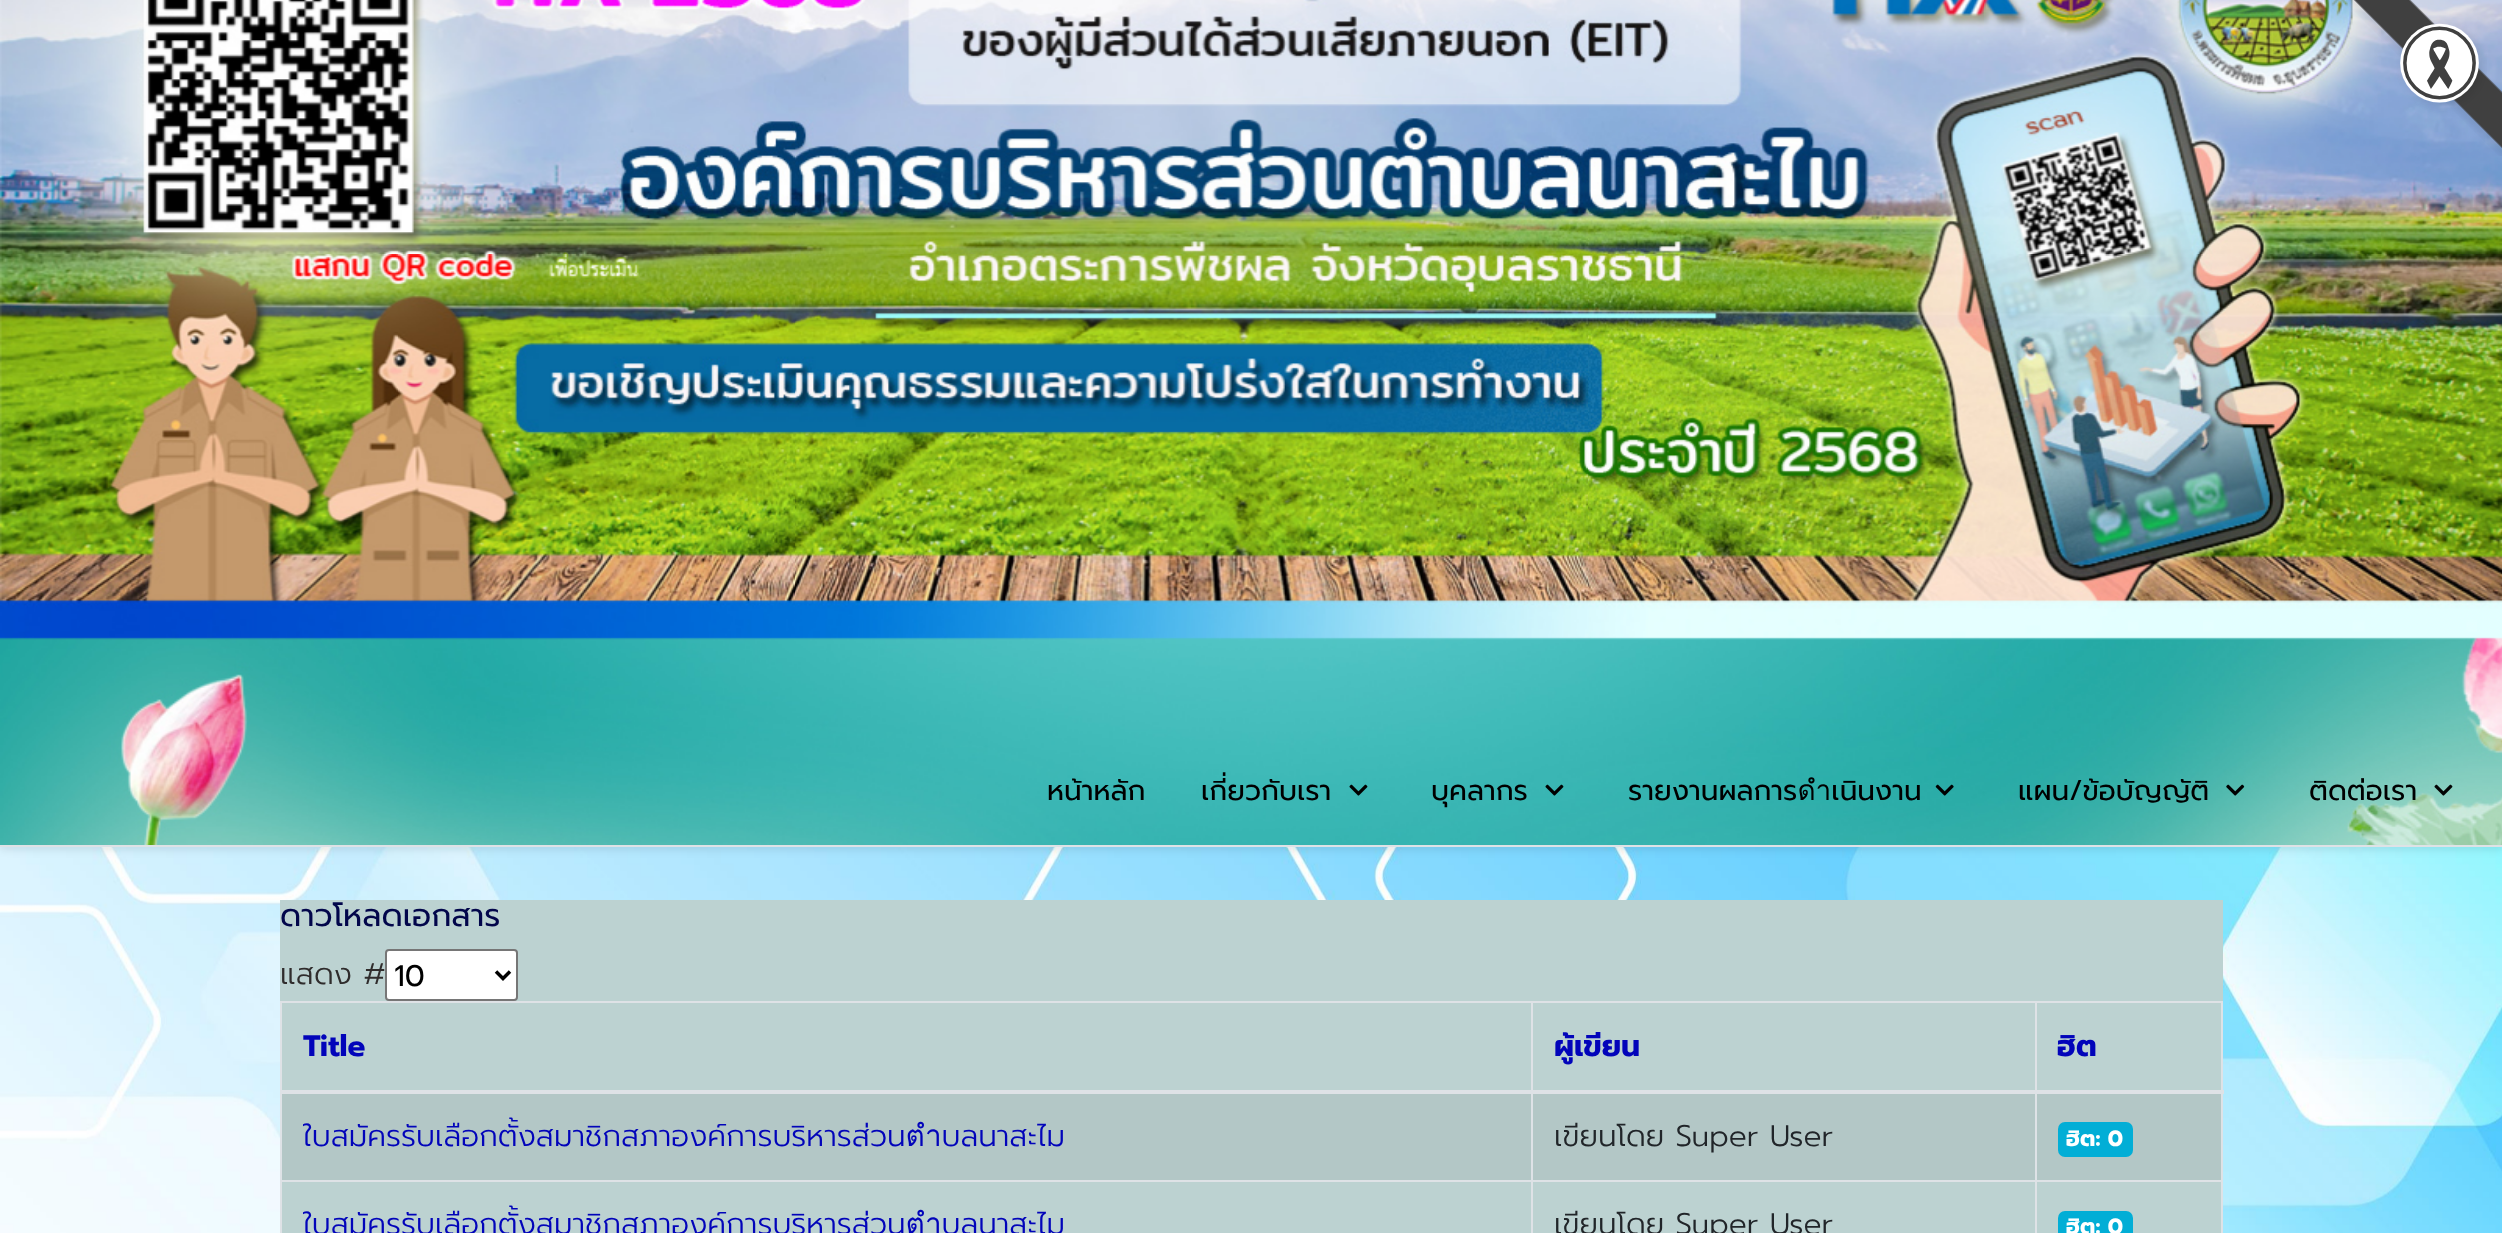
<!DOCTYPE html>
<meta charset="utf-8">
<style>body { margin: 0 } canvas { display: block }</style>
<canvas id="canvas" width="2502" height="1233"></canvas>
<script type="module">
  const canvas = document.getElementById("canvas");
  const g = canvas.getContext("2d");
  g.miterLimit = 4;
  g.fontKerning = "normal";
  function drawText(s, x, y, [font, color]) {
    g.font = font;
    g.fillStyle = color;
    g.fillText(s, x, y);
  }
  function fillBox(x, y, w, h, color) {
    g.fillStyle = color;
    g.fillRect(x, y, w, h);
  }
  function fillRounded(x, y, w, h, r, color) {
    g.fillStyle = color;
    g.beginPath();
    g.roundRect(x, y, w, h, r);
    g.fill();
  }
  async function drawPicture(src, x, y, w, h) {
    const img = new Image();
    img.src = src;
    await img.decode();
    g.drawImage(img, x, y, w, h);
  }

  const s1 = ["28px Prompt", "#000000"];
  const s2 = ["31.5px Prompt", "#02064B"];
  const s3 = ["300 29.75px Prompt", "#2F2C2C"];
  const s4 = ["29.75px Prompt", "#000000"];
  const s5 = ["bold 29.75px Prompt", "#0204BA"];
  const s6 = ["300 29.75px Prompt", "#0204BA"];
  const s7 = ["300 29.75px Prompt", "#212529"];
  const s8 = ["bold 22px Prompt", "#FFFFFF"];

  fillBox(0, 0, 2502, 1233, "#FFFFFF");
  await drawPicture("pic9.png", 0, 847, 2502, 386);
  g.fillStyle = "rgba(0, 0, 0, 0.07)";
  g.filter = "blur(3.5px)";
  g.beginPath();
  g.rect(0, -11, 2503, 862);
  g.fill();
  g.filter = "none";
  await drawPicture("pic1.png", 0, 637, 2502, 208);
  fillBox(0, 845, 2502, 2, "#DEE2E6");
  await drawPicture("pic2.png", 0, 0, 2502, 640);
  await drawPicture("pic3.png", 2346, 0, 156, 156);
  drawText("หน้าหลัก", 1047, 800, s1);
  drawText("เกี่ยวกับเรา", 1201, 800, s1);
  await drawPicture("pic4.png", 1349, 784, 19, 12);
  drawText("บุคลากร", 1431, 800, s1);
  await drawPicture("pic5.png", 1545, 784, 19, 12);
  drawText("รายงานผลการดำเนินงาน", 1628, 800, s1);
  await drawPicture("pic6.png", 1935, 784, 19, 12);
  drawText("แผน/ข้อบัญญัติ", 2018, 800, s1);
  await drawPicture("pic7.png", 2226, 784, 19, 12);
  drawText("ติดต่อเรา", 2309, 800, s1);
  await drawPicture("pic8.png", 2434, 784, 19, 12);
  fillBox(280, 900, 1943, 333, "#BCD2D1");
  drawText("ดาวโหลดเอกสาร", 280, 926, s2);
  drawText("แสดง #", 280, 984, s3);
  g.fillStyle = "#FFFFFF";
  g.beginPath();
  g.roundRect(386, 950, 131, 50, 3);
  g.fill();
  g.strokeStyle = "#767676";
  g.lineWidth = 2;
  g.stroke();
  g.beginPath();
  g.moveTo(496, 971.5);
  g.lineTo(503, 978.5);
  g.lineTo(510, 971.5);
  g.strokeStyle = "#000000";
  g.lineWidth = 3.5;
  g.stroke();
  drawText("10", 394, 986, s4);
  fillBox(280, 1001, 1943, 2, "#DEE2E6");
  fillBox(2221, 1001, 2, 232, "#DEE2E6");
  fillBox(280, 1001, 2, 232, "#DEE2E6");
  drawText("Title", 303, 1056, s5);
  drawText("ผู้เขียน", 1554, 1056, s5);
  fillBox(282, 1094, 1939, 86, "#B3C7C6");
  fillBox(2035, 1180, 188, 2, "#DEE2E6");
  fillBox(2035, 1180, 2, 53, "#DEE2E6");
  fillBox(1531, 1180, 506, 2, "#DEE2E6");
  fillBox(1531, 1180, 2, 53, "#DEE2E6");
  fillBox(280, 1180, 1253, 2, "#DEE2E6");
  fillBox(1531, 1001, 2, 180, "#DEE2E6");
  fillBox(2035, 1001, 2, 180, "#DEE2E6");
  fillBox(280, 1090, 1944, 4, "#DEE2E6");
  drawText("ฮิต", 2057, 1056, s5);
  drawText("ใบสมัครรับเลือกตั้งสมาชิกสภาองค์การบริหารส่วนตำบลนาสะไม", 303, 1146, s6);
  drawText("เขียนโดย Super User", 1554, 1146, s7);
  fillRounded(2058, 1122, 75, 35, 7, "#02AED6");
  drawText("ฮิต: 0", 2066, 1146, s8);
  drawText("ใบสมัครรับเลือกตั้งสมาชิกสภาองค์การบริหารส่วนตำบลนาสะไม", 303, 1234, s6);
  drawText("เขียนโดย Super User", 1554, 1234, s7);
  fillRounded(2058, 1211, 75, 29, 7, "#02AED6");
  drawText("ฮิต: 0", 2066, 1234, s8);
</script>
